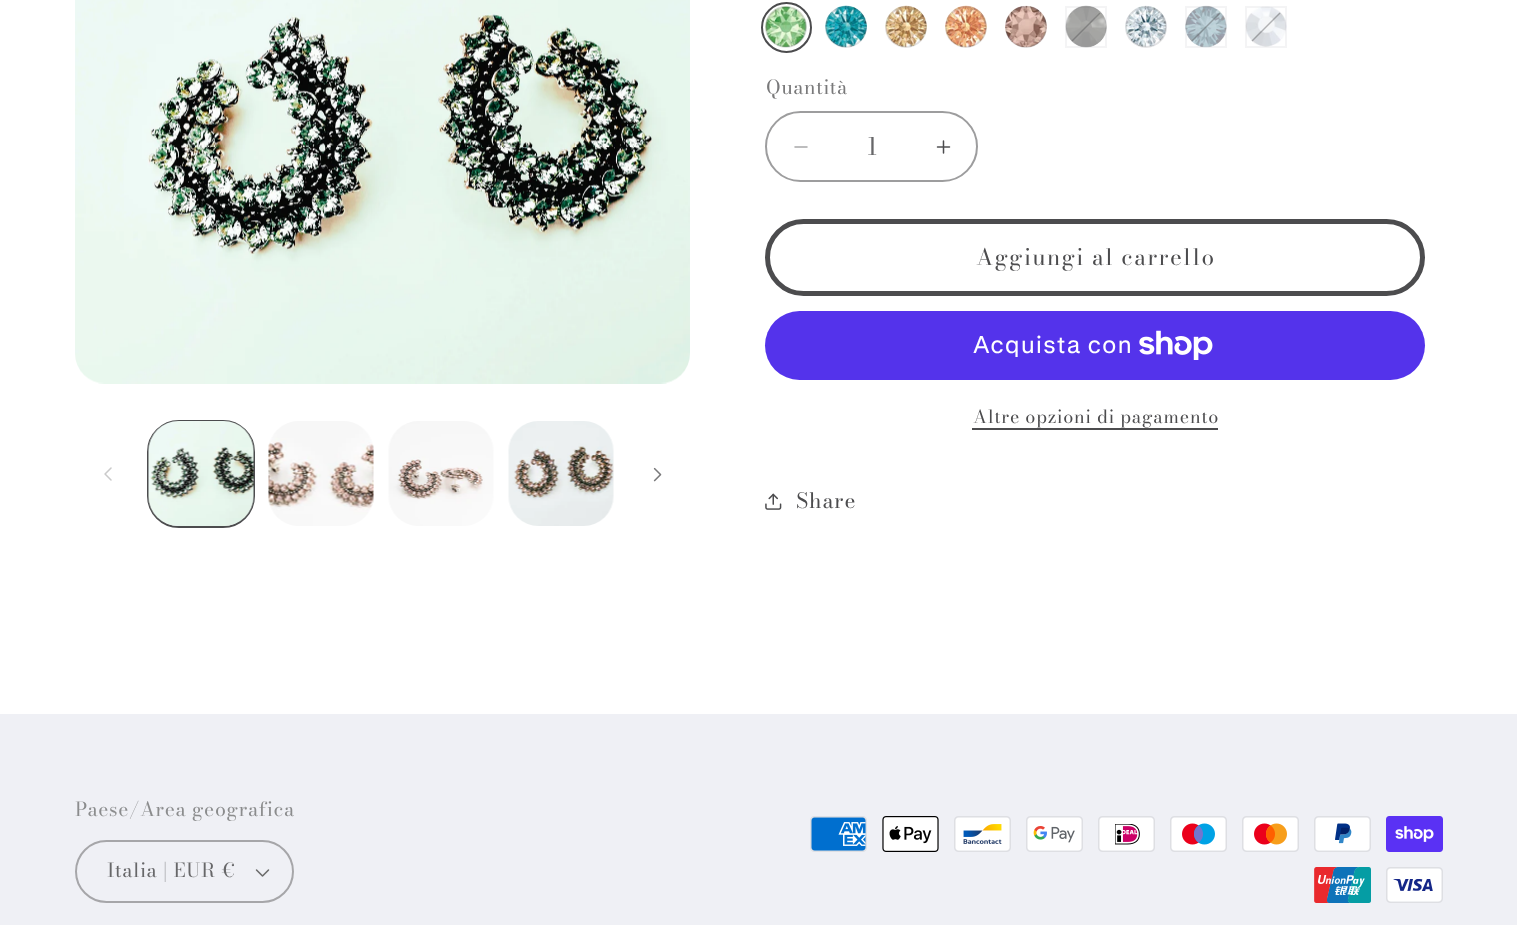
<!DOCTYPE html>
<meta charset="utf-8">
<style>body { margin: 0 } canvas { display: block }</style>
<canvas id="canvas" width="1517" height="925"></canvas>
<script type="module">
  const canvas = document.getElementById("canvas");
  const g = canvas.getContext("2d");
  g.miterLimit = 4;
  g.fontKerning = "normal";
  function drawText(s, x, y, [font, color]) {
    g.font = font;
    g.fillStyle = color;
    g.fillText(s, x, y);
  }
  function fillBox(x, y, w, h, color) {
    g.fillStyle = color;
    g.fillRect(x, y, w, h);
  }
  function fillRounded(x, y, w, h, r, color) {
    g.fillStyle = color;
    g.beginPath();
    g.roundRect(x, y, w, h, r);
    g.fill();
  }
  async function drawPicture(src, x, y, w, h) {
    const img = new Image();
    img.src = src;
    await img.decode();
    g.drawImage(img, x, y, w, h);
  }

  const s1 = ["19.5px Bodoni Moda", "#79797A"];
  const s2 = ["24px Bodoni Moda", "#676769"];
  const s3 = ["22.5px 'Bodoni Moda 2'", "#4C4C4E"];
  const s4 = ["24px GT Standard", "#FFFFFF"];
  const s5 = ["18px Bodoni Moda", "#4C4C4E"];
  const s6 = ["21px Bodoni Moda", "#4C4C4E"];
  const s7 = ["19.5px Bodoni Moda", "#8B8C8D"];
  const s8 = ["19.5px Bodoni Moda", "#676769"];

  fillBox(0, 0, 1517, 925, "#EFF0F5");
  fillBox(0, 0, 1517, 714, "#FFFFFF");
  await drawPicture("pic1.png", 75, 0, 615, 384);
  await drawPicture("pic2.png", 104, 467, 8, 14);
  g.beginPath();
  g.roundRect(148, 421, 106, 106, 31);
  g.strokeStyle = "#4C4C4E";
  g.lineWidth = 2;
  g.stroke();
  await drawPicture("pic3.png", 148, 421, 106, 105);
  await drawPicture("pic4.png", 268, 421, 106, 105);
  await drawPicture("pic5.png", 388, 421, 106, 105);
  await drawPicture("pic6.png", 508, 421, 106, 105);
  await drawPicture("pic7.png", 653, 467, 9, 15);
  await drawPicture("pic8.png", 765, 6, 42, 42);
  g.beginPath();
  g.arc(786, 27, 20, 0, Math.PI * 2);
  g.strokeStyle = "rgba(76, 76, 78, 0.15)";
  g.stroke();
  g.beginPath();
  g.arc(786.5, 27.5, 24.5, 0, Math.PI * 2);
  g.strokeStyle = "#4C4C4E";
  g.stroke();
  await drawPicture("pic9.png", 825, 5, 42, 43);
  g.beginPath();
  g.arc(846, 27, 20, 0, Math.PI * 2);
  g.strokeStyle = "rgba(76, 76, 78, 0.15)";
  g.stroke();
  await drawPicture("pic10.png", 885, 5, 42, 43);
  g.beginPath();
  g.arc(906, 27, 20, 0, Math.PI * 2);
  g.stroke();
  await drawPicture("pic11.png", 945, 5, 42, 43);
  g.beginPath();
  g.arc(966, 27, 20, 0, Math.PI * 2);
  g.stroke();
  await drawPicture("pic12.png", 1005, 5, 42, 43);
  g.beginPath();
  g.arc(1026, 27, 20, 0, Math.PI * 2);
  g.stroke();
  await drawPicture("pic13.png", 1065, 5, 42, 43);
  g.strokeStyle = "rgba(76, 76, 78, 0.06)";
  g.strokeRect(1066, 7, 40, 40);
  g.fillStyle = "rgba(76, 76, 78, 0.4)";
  g.beginPath();
  g.moveTo(1100.5, 13.5);
  g.lineTo(1072.5, 41.5);
  g.lineTo(1071.5, 40.5);
  g.lineTo(1099.5, 12.5);
  g.closePath();
  g.fill();
  await drawPicture("pic14.png", 1125, 5, 42, 42);
  g.beginPath();
  g.arc(1146, 27, 20, 0, Math.PI * 2);
  g.strokeStyle = "rgba(76, 76, 78, 0.15)";
  g.stroke();
  await drawPicture("pic15.png", 1185, 5, 42, 43);
  g.strokeStyle = "rgba(76, 76, 78, 0.06)";
  g.strokeRect(1186, 7, 40, 40);
  g.beginPath();
  g.moveTo(1220.5, 13.5);
  g.lineTo(1192.5, 41.5);
  g.lineTo(1191.5, 40.5);
  g.lineTo(1219.5, 12.5);
  g.closePath();
  g.fill();
  await drawPicture("pic16.png", 1245, 6, 42, 41);
  g.strokeRect(1246, 7, 40, 40);
  g.beginPath();
  g.moveTo(1280.5, 13.5);
  g.lineTo(1252.5, 41.5);
  g.lineTo(1251.5, 40.5);
  g.lineTo(1279.5, 12.5);
  g.closePath();
  g.fill();
  g.letterSpacing = "0.6px";
  drawText("Quantità", 766, 94, s1);
  await drawPicture("pic17.png", 794, 146, 14, 2);
  await drawPicture("pic18.png", 936, 140, 15, 14);
  g.beginPath();
  g.roundRect(766, 112, 211, 69, 34.5);
  g.strokeStyle = "#9D9D9E";
  g.stroke();
  g.letterSpacing = "0px";
  drawText("1", 867, 155, s2);
  g.beginPath();
  g.roundRect(767.5, 221.5, 655, 72, 36);
  g.strokeStyle = "#4C4C4E";
  g.lineWidth = 5;
  g.stroke();
  g.letterSpacing = "1.5px";
  drawText("Aggiungi al carrello", 976, 265, s3);
  fillRounded(765, 311, 660, 69, 34.5, "#5433EB");
  g.letterSpacing = "0.9px";
  drawText("Acquista con", 973, 353, s4);
  await drawPicture("pic19.png", 1139, 330, 74, 30);
  g.letterSpacing = "0.75px";
  drawText("Altre opzioni di pagamento", 973, 423, s5);
  fillBox(972, 428, 246, 2, "#4C4C4E");
  await drawPicture("pic20.png", 765, 493, 17, 17);
  g.letterSpacing = "0.9px";
  drawText("Share", 796, 508, s6);
  g.letterSpacing = "0.6px";
  drawText("Paese/Area geografica", 75, 816, s7);
  await drawPicture("pic21.png", 255, 869, 15, 8);
  g.beginPath();
  g.roundRect(76, 841, 217, 61, 30.5);
  g.strokeStyle = "#A6A6A9";
  g.lineWidth = 2;
  g.stroke();
  drawText("Italia | EUR €", 107, 877, s8);
  await drawPicture("pic22.png", 810, 816, 57, 36);
  await drawPicture("pic23.png", 882, 816, 57, 36);
  await drawPicture("pic24.png", 954, 816, 57, 36);
  await drawPicture("pic25.png", 1026, 816, 57, 36);
  await drawPicture("pic26.png", 1098, 816, 57, 36);
  await drawPicture("pic27.png", 1170, 816, 57, 36);
  await drawPicture("pic28.png", 1242, 816, 57, 36);
  await drawPicture("pic29.png", 1314, 816, 57, 36);
  await drawPicture("pic30.png", 1386, 816, 57, 36);
  await drawPicture("pic31.png", 1314, 867, 57, 36);
  await drawPicture("pic32.png", 1386, 867, 57, 36);
</script>
